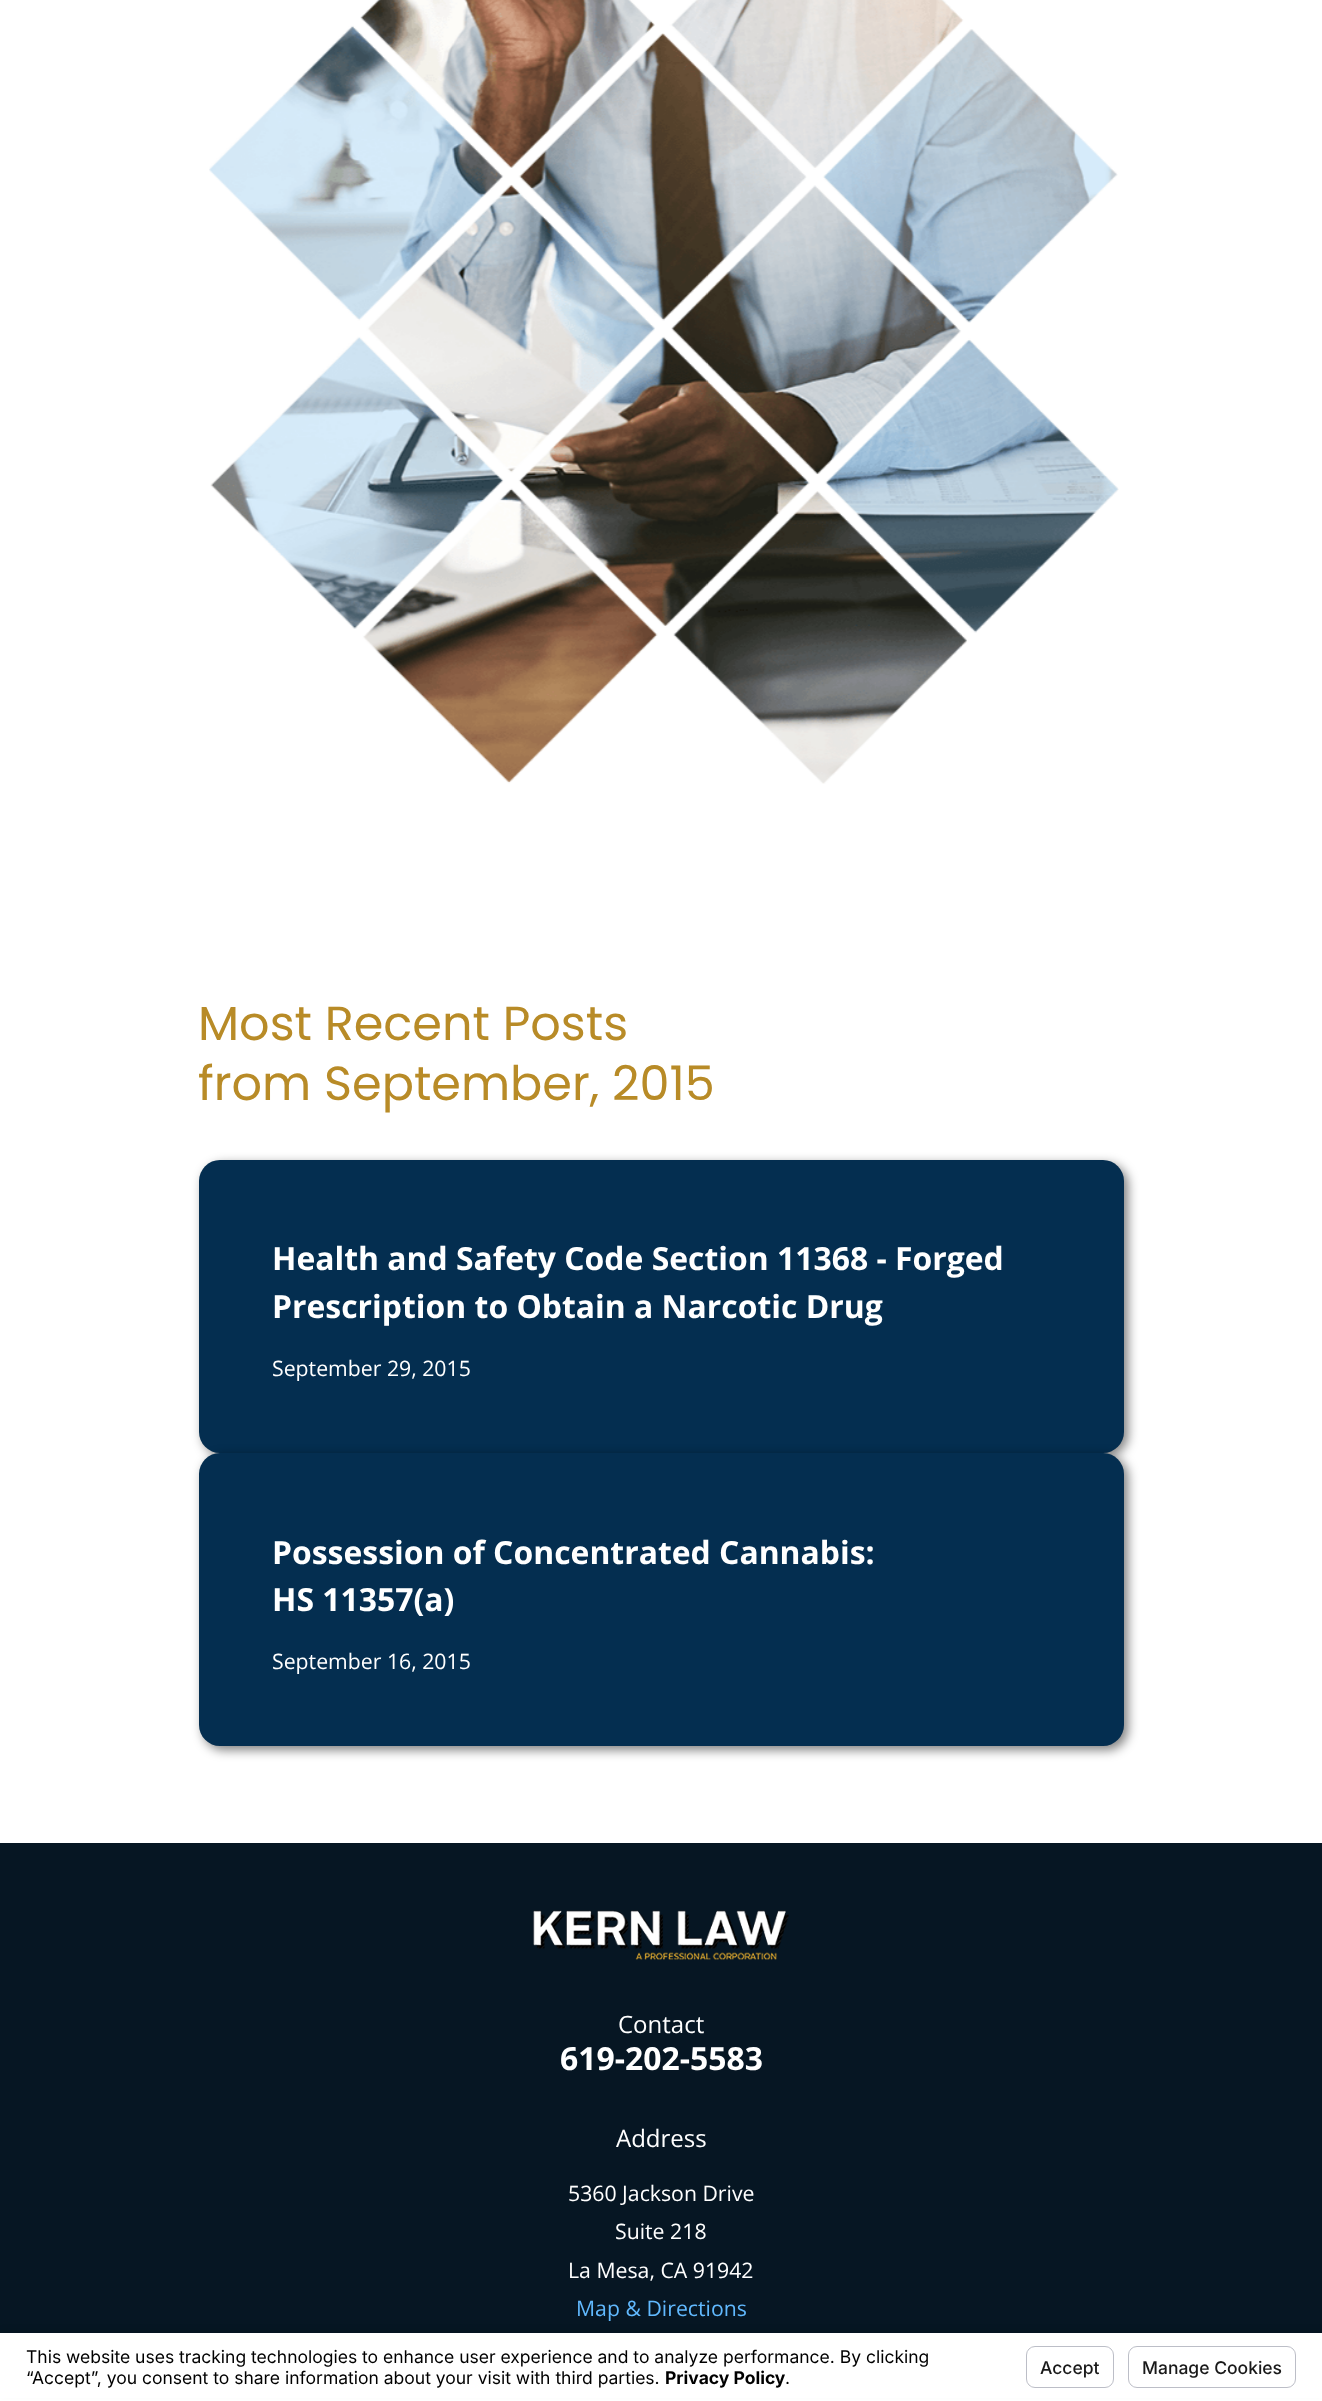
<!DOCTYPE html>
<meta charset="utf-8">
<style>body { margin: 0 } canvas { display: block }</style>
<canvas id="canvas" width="1322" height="2401"></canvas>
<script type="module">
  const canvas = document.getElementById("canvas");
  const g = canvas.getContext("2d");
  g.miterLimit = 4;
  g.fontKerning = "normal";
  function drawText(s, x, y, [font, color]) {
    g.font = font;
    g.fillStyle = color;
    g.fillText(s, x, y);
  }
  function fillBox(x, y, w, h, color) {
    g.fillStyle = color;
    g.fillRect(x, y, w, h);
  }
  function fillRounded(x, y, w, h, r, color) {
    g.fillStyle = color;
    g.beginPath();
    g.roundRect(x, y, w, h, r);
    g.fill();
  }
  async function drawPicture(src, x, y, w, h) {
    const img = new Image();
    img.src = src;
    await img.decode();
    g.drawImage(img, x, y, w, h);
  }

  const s1 = ["47.75px Poppins", "#B88B27"];
  const s2 = ["bold 31.9px Open Sans", "#FFFFFF"];
  const s3 = ["21.25px Open Sans", "#FFFFFF"];
  const s4 = ["24px Open Sans", "#FFFFFF"];
  const s5 = ["21.25px Open Sans", "#61B9FE"];
  const s6 = ["17.5px Inter", "#000000"];
  const s7 = ["bold 17.5px Inter", "#000000"];
  const s8 = ["500 17.5px Inter", "#191919"];

  fillBox(0, 0, 1322, 2401, "#FFFFFF");
  await drawPicture("pic1.png", 209, 0, 910, 784);
  drawText("Most Recent Posts", 198, 1040, s1);
  drawText("from September, 2015", 198, 1100, s1);
  g.fillStyle = "rgba(0, 0, 0, 0.5)";
  g.filter = "blur(5.5px)";
  g.beginPath();
  g.roundRect(203, 1164, 925, 292, 21);
  g.fill();
  g.filter = "none";
  fillRounded(199, 1160, 925, 293, 21, "#042E50");
  drawText("Health and Safety Code Section 11368 - Forged", 272, 1270, s2);
  drawText("Prescription to Obtain a Narcotic Drug", 272, 1318, s2);
  drawText("September 29, 2015", 272, 1376, s3);
  g.fillStyle = "rgba(0, 0, 0, 0.5)";
  g.filter = "blur(5.5px)";
  g.beginPath();
  g.roundRect(203, 1456, 925, 294, 21);
  g.fill();
  g.filter = "none";
  fillRounded(199, 1453, 925, 293, 21, "#042E50");
  drawText("Possession of Concentrated Cannabis:", 272, 1564, s2);
  drawText("HS 11357(a)", 272, 1611, s2);
  drawText("September 16, 2015", 272, 1669, s3);
  fillBox(0, 1843, 1322, 490, "#061623");
  await drawPicture("pic2.png", 533, 1910, 256, 50);
  drawText("Contact", 618, 2033, s4);
  drawText("619-202-5583", 560, 2070, s2);
  drawText("Address", 616, 2147, s4);
  drawText("5360 Jackson Drive", 568, 2201, s3);
  drawText("Suite 218", 615, 2239, s3);
  drawText("La Mesa, CA 91942", 568, 2278, s3);
  drawText("Map & Directions", 576, 2316, s5);
  g.fillStyle = "rgba(0, 0, 0, 0.05)";
  g.filter = "blur(2px)";
  g.beginPath();
  g.rect(0, 2328, 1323, 68);
  g.fill();
  g.filter = "none";
  fillBox(0, 2333, 1322, 65, "#FFFFFF");
  drawText("This website uses tracking technologies to enhance user experience and to analyze performance. By clicking", 26, 2363, s6);
  drawText("“Accept”, you consent to share information about your visit with third parties.", 26, 2384, s6);
  drawText("Privacy Policy", 665, 2384, s7);
  drawText(".", 785, 2384, s6);
  g.beginPath();
  g.roundRect(1026.5, 2346.5, 87, 41, 8.5);
  g.strokeStyle = "#BCBEC7";
  g.stroke();
  drawText("Accept", 1040, 2374, s8);
  g.beginPath();
  g.roundRect(1128.5, 2346.5, 167, 41, 8.5);
  g.stroke();
  drawText("Manage Cookies", 1142, 2374, s8);
</script>
